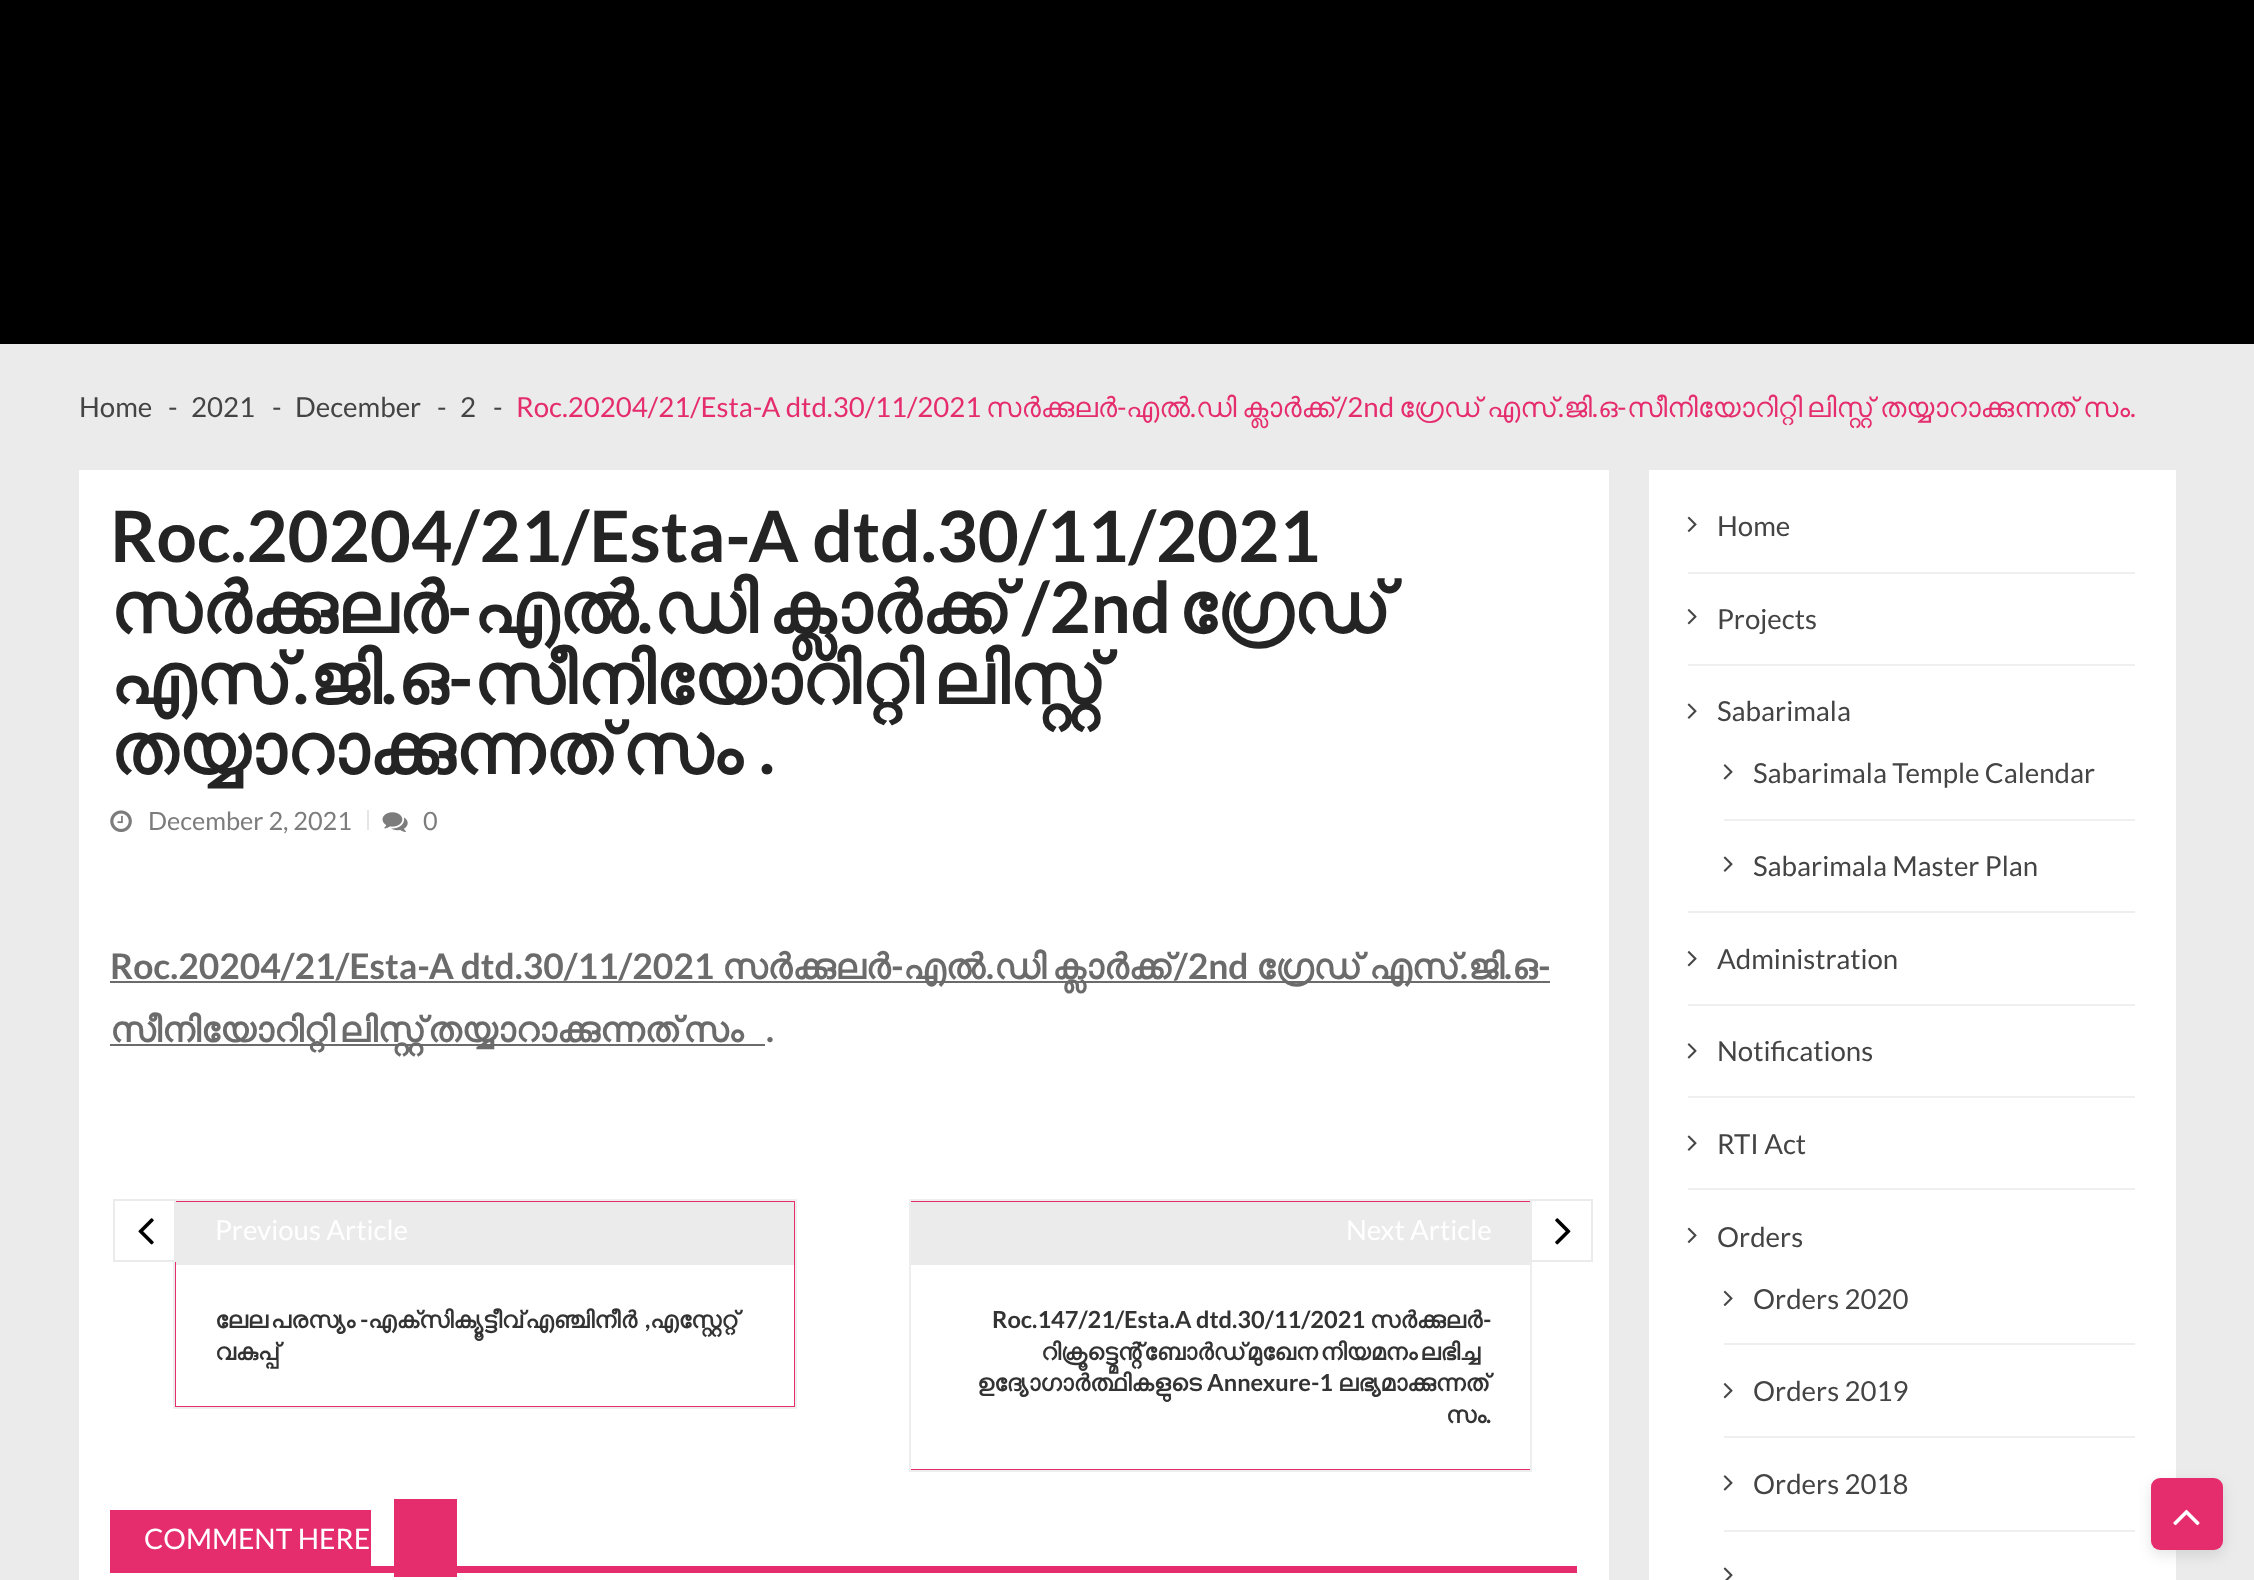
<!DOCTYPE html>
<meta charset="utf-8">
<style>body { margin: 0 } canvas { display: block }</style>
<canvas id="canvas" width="2254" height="1580"></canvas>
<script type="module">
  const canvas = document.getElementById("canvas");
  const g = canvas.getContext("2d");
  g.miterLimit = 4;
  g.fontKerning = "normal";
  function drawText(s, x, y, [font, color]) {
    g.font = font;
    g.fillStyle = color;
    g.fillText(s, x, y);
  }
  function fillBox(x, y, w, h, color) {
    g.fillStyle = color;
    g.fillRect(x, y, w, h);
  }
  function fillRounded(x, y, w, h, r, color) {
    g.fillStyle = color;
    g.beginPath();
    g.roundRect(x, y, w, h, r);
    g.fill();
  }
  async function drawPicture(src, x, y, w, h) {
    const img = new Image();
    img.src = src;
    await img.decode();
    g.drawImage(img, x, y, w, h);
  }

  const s1 = ["27.6px Lato", "#444444"];
  const s2 = ["27.6px Lato", "#E52D6D"];
  const s3 = ["27.6px FreeSans", "#E52D6D"];
  const s4 = ["bold 70.9px Lato", "#242424"];
  const s5 = ["bold 70.9px FreeSans", "#242424"];
  const s6 = ["25.25px Lato", "#7C7C7C"];
  const s7 = ["bold 35.4px Lato", "#6B6B6B"];
  const s8 = ["bold 35.4px FreeSans", "#6B6B6B"];
  const s9 = ["27.6px Lato", "#FFFFFF"];
  const s10 = ["bold 23.6px FreeSans", "#333333"];
  const s11 = ["bold 23.6px Lato", "#333333"];
  const s12 = ["28.25px Lato", "#FFFFFF"];

  fillBox(0, 0, 2254, 1580, "#EBEBEB");
  fillBox(0, 0, 2254, 344, "#000000");
  drawText("Home", 79, 417, s1);
  drawText("-", 168, 417, s1);
  drawText("2021", 191, 417, s1);
  drawText("-", 272, 417, s1);
  drawText("December", 295, 417, s1);
  drawText("-", 437, 417, s1);
  drawText("2", 460, 417, s1);
  drawText("-", 493, 417, s1);
  drawText("Roc.20204/21/Esta-A dtd.30/11/2021", 516, 417, s2);
  drawText("സർക്കുലർ", 986, 417, s3);
  drawText("-", 1117, 417, s2);
  drawText("എൽ", 1126, 417, s3);
  drawText(".", 1190, 417, s2);
  drawText("ഡി", 1196, 417, s3);
  drawText("ക്ലാർക്ക്", 1242, 417, s3);
  drawText("/2nd", 1337, 417, s2);
  drawText("ഗ്രേഡ്", 1399, 417, s3);
  drawText("എസ്", 1487, 417, s3);
  drawText(".", 1558, 417, s2);
  drawText("ജി", 1564, 417, s3);
  drawText("ഒ", 1598, 417, s3);
  drawText("-", 1617, 417, s2);
  drawText("സീനിയോറിറ്റി", 1627, 417, s3);
  drawText("ലിസ്റ്റ്", 1807, 417, s3);
  drawText("തയ്യാറാക്കുന്നത്", 1880, 417, s3);
  drawText("സം", 2083, 417, s3);
  drawText(".", 1592, 417, s2);
  drawText(".", 2130, 417, s2);
  fillBox(79, 470, 1530, 1110, "#FFFFFF");
  drawText("Roc.20204/21/Esta-A dtd.30/11/2021", 110, 562, s4);
  drawText("സർക്കുലർ", 110, 633, s5);
  drawText("-", 447, 633, s4);
  drawText("എൽ", 473, 633, s5);
  drawText(".", 637, 633, s4);
  g.wordSpacing = "-7px";
  drawText("ഡി ക്ലാർക്ക്", 653, 633, s5);
  g.wordSpacing = "0px";
  drawText("/2nd", 1022, 633, s4);
  drawText("ഗ്രേഡ്", 1178, 633, s5);
  drawText("എസ്", 110, 704, s5);
  drawText(".", 293, 704, s4);
  drawText("ജി", 309, 704, s5);
  drawText("ഒ", 397, 704, s5);
  drawText("-", 448, 704, s4);
  g.wordSpacing = "-8px";
  drawText("സീനിയോറിറ്റി ലിസ്റ്റ്", 473, 704, s5);
  g.wordSpacing = "0px";
  drawText(".", 381, 704, s4);
  g.wordSpacing = "-8px";
  drawText("തയ്യാറാക്കുന്നത് സം", 110, 774, s5);
  g.wordSpacing = "0px";
  drawText(".", 759, 774, s4);
  await drawPicture("pic1.png", 110, 810, 22, 22);
  drawText("December 2, 2021", 148, 830, s6);
  fillBox(367, 810, 2, 20, "#E6E6E6");
  await drawPicture("pic2.png", 382, 812, 26, 20);
  drawText("0", 423, 830, s6);
  drawText("Roc.20204/21/Esta-A dtd.30/11/2021", 110, 979, s7);
  drawText("സർക്കുലർ", 722, 979, s8);
  drawText("-", 891, 979, s7);
  fillBox(110, 981, 1440, 2, "#6B6B6B");
  drawText("എൽ", 903, 979, s8);
  drawText(".", 986, 979, s7);
  drawText("ഡി", 994, 979, s8);
  drawText("ക്ലാർക്ക്", 1052, 979, s8);
  drawText("/2nd", 1174, 979, s7);
  drawText("ഗ്രേഡ്", 1256, 979, s8);
  drawText("എസ്", 1369, 979, s8);
  drawText(".", 1460, 979, s7);
  drawText("ജി", 1468, 979, s8);
  drawText("ഒ", 1512, 979, s8);
  drawText("-", 1538, 979, s7);
  drawText(".", 1504, 979, s7);
  fillBox(110, 1044, 655, 2, "#6B6B6B");
  g.wordSpacing = "-4px";
  drawText("സീനിയോറിറ്റി ലിസ്റ്റ് തയ്യാറാക്കുന്നത് സം", 110, 1042, s8);
  g.wordSpacing = "0px";
  drawText(".", 766, 1042, s7);
  g.fillStyle = "#E52D6D";
  g.beginPath();
  g.rect(174, 1200, 622, 208);
  g.fill();
  g.strokeStyle = "#EEEEEE";
  g.lineWidth = 2;
  g.stroke();
  fillBox(173, 1201, 1, 59, "#FFFFFF");
  g.strokeStyle = "#EBEBEB";
  g.strokeRect(114, 1200, 61, 61);
  await drawPicture("pic3.png", 138, 1218, 16, 27);
  fillBox(176, 1202, 618, 63, "#EBEBEB");
  drawText("Previous Article", 215, 1240, s9);
  fillBox(176, 1265, 618, 141, "#FFFFFF");
  g.wordSpacing = "-3px";
  drawText("ലേല പരസ്യം", 215, 1328, s10);
  g.wordSpacing = "0px";
  drawText("-", 360, 1328, s11);
  g.wordSpacing = "-3px";
  drawText("എക്‌സിക്യൂട്ടീവ് എഞ്ചിനീർ", 368, 1328, s10);
  g.wordSpacing = "0px";
  drawText("എസ്റ്റേറ്റ്", 650, 1328, s10);
  drawText(",", 645, 1328, s11);
  drawText("വകുപ്പ്", 215, 1360, s10);
  g.fillStyle = "#E52D6D";
  g.beginPath();
  g.rect(910, 1200, 621, 271);
  g.fill();
  g.strokeStyle = "#EEEEEE";
  g.stroke();
  g.strokeStyle = "#EBEBEB";
  g.strokeRect(1531, 1200, 61, 61);
  fillBox(911, 1202, 619, 63, "#EBEBEB");
  drawText("Next Article", 1346, 1240, s9);
  await drawPicture("pic4.png", 1555, 1218, 16, 27);
  fillBox(911, 1265, 619, 204, "#FFFFFF");
  drawText("Roc.147/21/Esta.A dtd.30/11/2021", 992, 1328, s11);
  drawText("സർക്കുലർ", 1370, 1328, s10);
  drawText("-", 1483, 1328, s11);
  g.wordSpacing = "-3px";
  drawText("റിക്രൂട്ട്മെൻ്റ് ബോർഡ് മുഖേന നിയമനം ലഭിച്ച", 1041, 1360, s10);
  g.wordSpacing = "0px";
  drawText("ഉദ്യോഗാർത്ഥികളുടെ", 977, 1391, s10);
  drawText("Annexure-1", 1207, 1391, s11);
  drawText("ലഭ്യമാക്കുന്നത്", 1338, 1391, s10);
  drawText("സം", 1446, 1423, s10);
  drawText(".", 1486, 1423, s11);
  fillBox(110, 1510, 261, 56, "#E52D6D");
  drawText("COMMENT HERE", 144, 1549, s12);
  fillBox(110, 1566, 1467, 7, "#E52D6D");
  fillBox(394, 1499, 63, 78, "#E52D6D");
  fillBox(1649, 470, 527, 1110, "#FFFFFF");
  fillBox(1688, 572, 447, 2, "#EFEFEF");
  await drawPicture("pic5.png", 1687, 516, 10, 16);
  drawText("Home", 1717, 536, s1);
  fillBox(1688, 664, 447, 2, "#EFEFEF");
  await drawPicture("pic6.png", 1687, 609, 10, 16);
  drawText("Projects", 1717, 629, s1);
  fillBox(1688, 911, 447, 2, "#EFEFEF");
  await drawPicture("pic7.png", 1687, 703, 10, 16);
  drawText("Sabarimala", 1717, 721, s1);
  fillBox(1724, 819, 411, 2, "#EFEFEF");
  await drawPicture("pic8.png", 1723, 764, 10, 16);
  drawText("Sabarimala Temple Calendar", 1753, 783, s1);
  await drawPicture("pic7.png", 1723, 856, 10, 16);
  drawText("Sabarimala Master Plan", 1753, 876, s1);
  fillBox(1688, 1004, 447, 2, "#EFEFEF");
  await drawPicture("pic6.png", 1687, 951, 10, 16);
  drawText("Administration", 1717, 969, s1);
  fillBox(1688, 1096, 447, 2, "#EFEFEF");
  await drawPicture("pic8.png", 1687, 1043, 10, 16);
  drawText("Notifications", 1717, 1061, s1);
  fillBox(1688, 1188, 447, 2, "#EFEFEF");
  await drawPicture("pic7.png", 1687, 1135, 10, 16);
  drawText("RTI Act", 1717, 1154, s1);
  await drawPicture("pic5.png", 1687, 1227, 10, 16);
  drawText("Orders", 1717, 1247, s1);
  fillBox(1724, 1343, 411, 2, "#EFEFEF");
  await drawPicture("pic5.png", 1723, 1290, 10, 16);
  drawText("Orders 2020", 1753, 1309, s1);
  fillBox(1724, 1436, 411, 2, "#EFEFEF");
  await drawPicture("pic6.png", 1723, 1383, 10, 16);
  drawText("Orders 2019", 1753, 1401, s1);
  fillBox(1724, 1530, 411, 2, "#EFEFEF");
  await drawPicture("pic8.png", 1723, 1475, 10, 16);
  drawText("Orders 2018", 1753, 1494, s1);
  await drawPicture("pic9.png", 1723, 1567, 10, 13);
  g.fillStyle = "rgba(0, 0, 0, 0.1)";
  g.filter = "blur(7px)";
  g.beginPath();
  g.roundRect(2151, 1483, 72, 72, 9);
  g.fill();
  g.filter = "none";
  fillRounded(2151, 1478, 72, 72, 9, "#E52D6D");
  await drawPicture("pic10.png", 2173, 1509, 27, 17);
</script>
